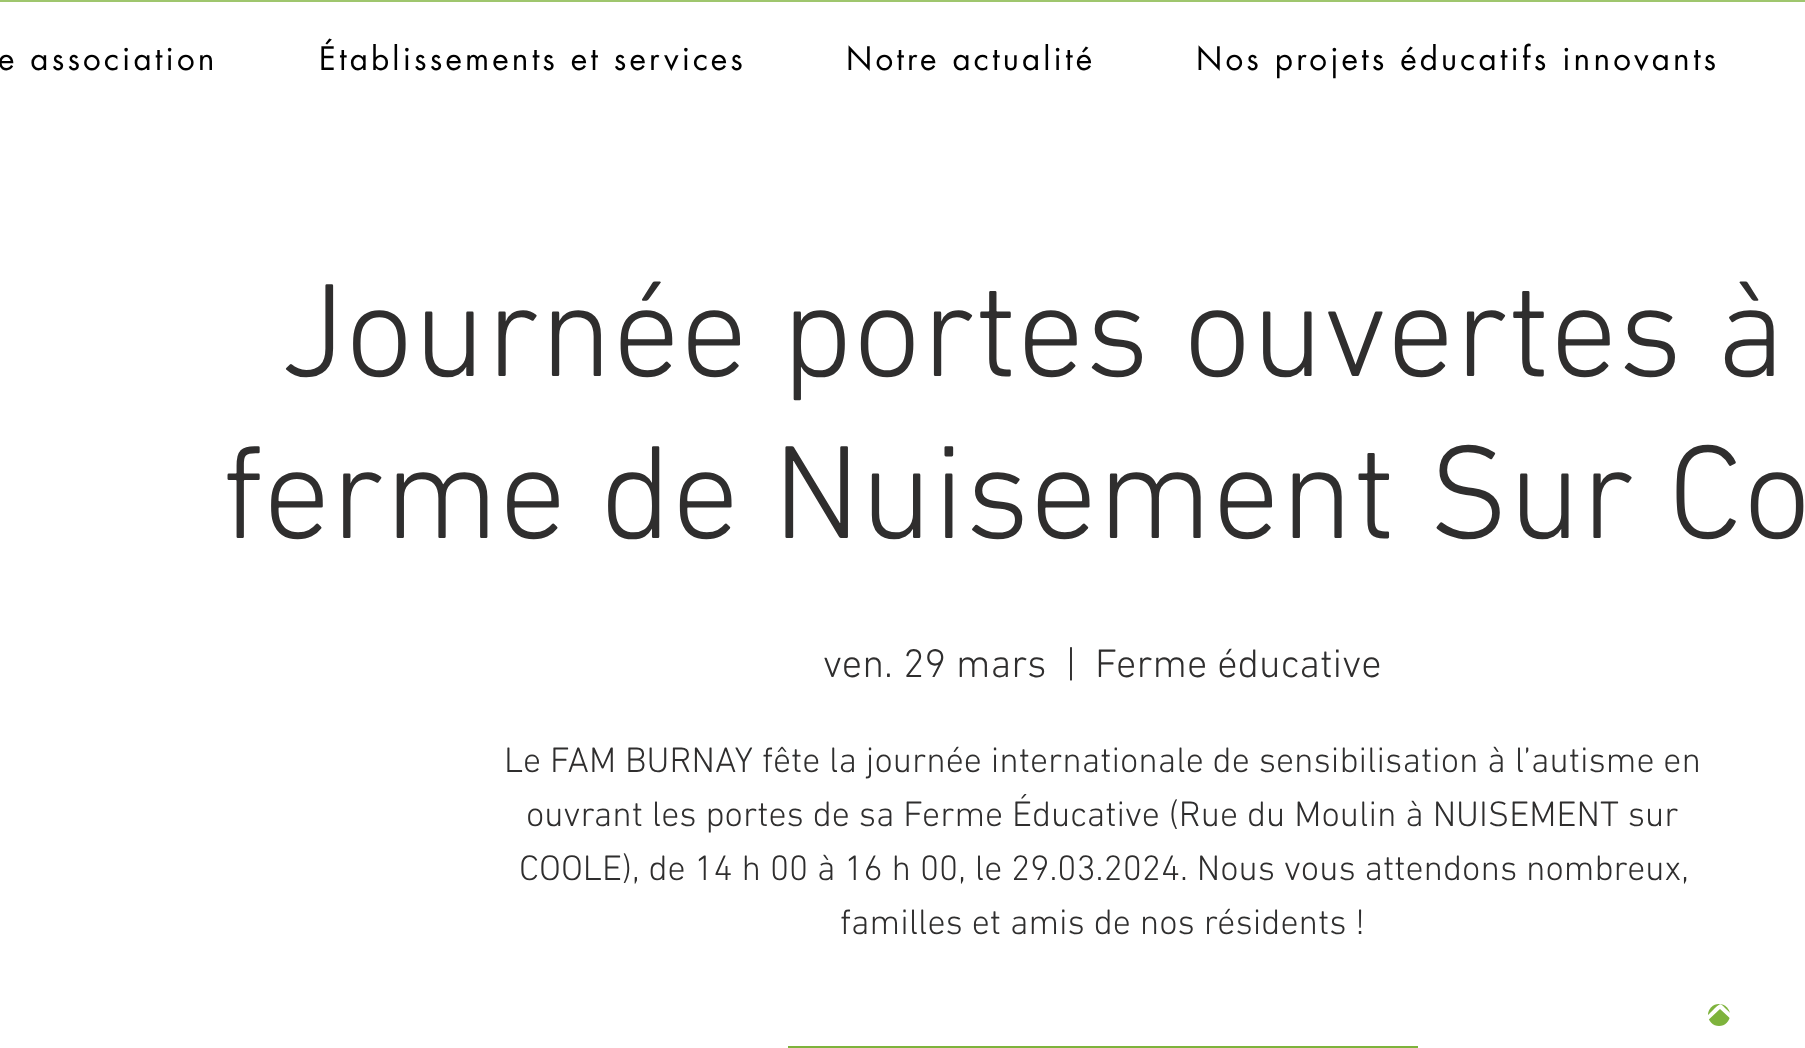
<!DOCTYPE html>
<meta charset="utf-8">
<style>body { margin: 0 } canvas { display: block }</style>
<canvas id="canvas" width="1805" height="1048"></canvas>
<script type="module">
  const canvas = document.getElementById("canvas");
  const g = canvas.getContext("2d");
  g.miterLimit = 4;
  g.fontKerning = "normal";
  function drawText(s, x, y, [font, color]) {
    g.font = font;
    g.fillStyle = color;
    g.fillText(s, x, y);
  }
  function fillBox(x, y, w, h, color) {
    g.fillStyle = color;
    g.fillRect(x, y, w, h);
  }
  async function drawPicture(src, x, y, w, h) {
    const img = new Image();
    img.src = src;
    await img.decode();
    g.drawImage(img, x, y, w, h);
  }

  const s1 = ["31.5px futura", "#000000"];
  const s2 = ["300 135px 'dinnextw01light'", "#2F2E2E"];
  const s3 = ["300 40.5px 'dinnextw01light'", "#2F2E2E"];
  const s4 = ["300 36px 'dinnextw01light'", "#2F2E2E"];

  fillBox(0, 0, 1805, 1048, "#FFFFFF");
  fillBox(0, 0, 1805, 2, "#7EB33C");
  await drawPicture("pic1.png", 0, 0, 1805, 2);
  g.letterSpacing = "3.15px";
  drawText("e association", -2, 70, s1);
  drawText("Établissements et services", 319, 70, s1);
  drawText("Notre actualité", 846, 70, s1);
  drawText("Nos projets éducatifs innovants", 1196, 70, s1);
  g.letterSpacing = "0px";
  drawText("Journée portes ouvertes à", 281, 376, s2);
  drawText("ferme de Nuisement Sur Co", 222, 538, s2);
  drawText("ven. 29 mars", 823, 677, s3);
  drawText("|", 1066, 677, s3);
  drawText("Ferme éducative", 1095, 677, s3);
  drawText("Le FAM BURNAY fête la journée internationale de sensibilisation à l’autisme en", 504, 772, s4);
  drawText("ouvrant les portes de sa Ferme Éducative (Rue du Moulin à NUISEMENT sur", 526, 826, s4);
  drawText("COOLE), de 14 h 00 à 16 h 00, le 29.03.2024. Nous vous attendons nombreux,", 519, 880, s4);
  drawText("familles et amis de nos résidents !", 840, 934, s4);
  fillBox(788, 1046, 630, 2, "#7EB33C");
  g.beginPath();
  g.arc(1719, 1015, 11, 0, Math.PI * 2);
  g.fill();
  g.save();
  g.beginPath();
  g.rect(1708, 1004, 22, 22);
  g.clip();
  g.fillStyle = "#FFFFFF";
  g.beginPath();
  g.moveTo(1742, 1024);
  g.lineTo(1725, 1008);
  g.bezierCurveTo(1720, 1003, 1721, 1003, 1715, 1008);
  g.lineTo(1702, 1021);
  g.bezierCurveTo(1701, 1021, 1696, 1025, 1698, 1027);
  g.bezierCurveTo(1700, 1029, 1703, 1025, 1704, 1024);
  g.lineTo(1720, 1009);
  g.lineTo(1733, 1021);
  g.bezierCurveTo(1734, 1022, 1741, 1031, 1743, 1026);
  g.closePath();
  g.fill();
  g.restore();
</script>
